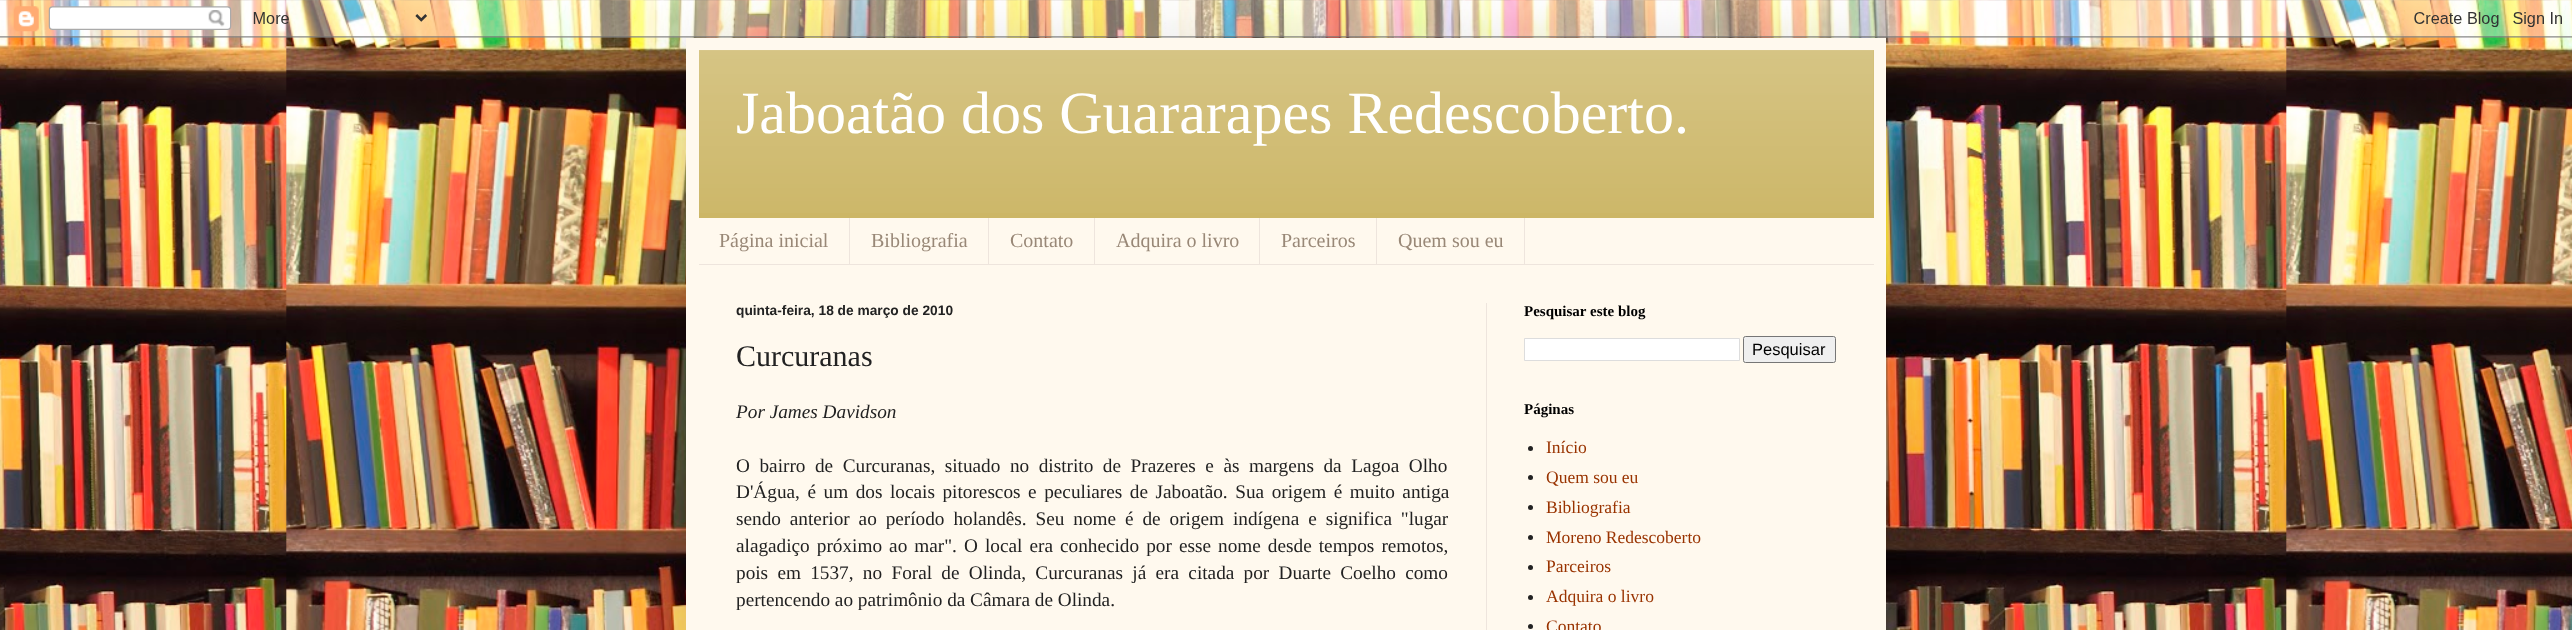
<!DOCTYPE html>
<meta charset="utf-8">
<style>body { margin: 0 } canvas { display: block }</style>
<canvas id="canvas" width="2572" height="630"></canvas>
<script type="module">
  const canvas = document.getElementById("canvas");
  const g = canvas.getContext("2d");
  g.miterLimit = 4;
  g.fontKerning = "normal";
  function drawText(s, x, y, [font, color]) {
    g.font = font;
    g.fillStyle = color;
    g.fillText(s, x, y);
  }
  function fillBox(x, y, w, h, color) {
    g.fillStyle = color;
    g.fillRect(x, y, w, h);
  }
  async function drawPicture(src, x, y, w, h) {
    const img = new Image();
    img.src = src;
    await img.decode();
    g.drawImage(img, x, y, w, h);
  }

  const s1 = ["60px Liberation Serif", "#FFFFFF"];
  const s2 = ["20px Liberation Serif", "#998877"];
  const s3 = ["bold 13.75px Liberation Sans", "#222222"];
  const s4 = ["30px Liberation Serif", "#222222"];
  const s5 = ["italic 19.25px Liberation Serif", "#222222"];
  const s6 = ["19.25px Liberation Serif", "#222222"];
  const s7 = ["bold 15px Liberation Serif", "#000000"];
  const s8 = ["16.5px Liberation Sans", "#000000"];
  const s9 = ["17.5px Liberation Serif", "#993300"];

  fillBox(0, 0, 2572, 630, "#FFFFFF");
  await drawPicture("pic1.png", 0, 0, 2572, 630);
  g.fillStyle = "rgba(0, 0, 0, 0.15)";
  g.filter = "blur(25px)";
  g.beginPath();
  g.rect(686, 38, 1200, 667);
  g.fill();
  g.filter = "none";
  await drawPicture("pic2.png", 0, 0, 2572, 38);
  fillBox(686, 38, 1200, 592, "#FFF9EE");
  fillBox(699, 50, 1175, 168, "#CCB666");
  await drawPicture("pic3.png", 699, 50, 1175, 163);
  drawText("Jaboatão dos Guararapes Redescoberto.", 736, 133, s1);
  fillBox(699, 264, 1175, 1, "#EEE5DD");
  fillBox(849, 218, 1, 46, "#EEE5DD");
  drawText("Página inicial", 719, 247, s2);
  fillBox(988, 218, 1, 46, "#EEE5DD");
  drawText("Bibliografia", 871, 247, s2);
  fillBox(1094, 218, 1, 46, "#EEE5DD");
  drawText("Contato", 1010, 247, s2);
  fillBox(1259, 218, 1, 46, "#EEE5DD");
  drawText("Adquira o livro", 1116, 247, s2);
  fillBox(1376, 218, 1, 46, "#EEE5DD");
  drawText("Parceiros", 1281, 247, s2);
  fillBox(1524, 218, 1, 46, "#EEE5DD");
  drawText("Quem sou eu", 1398, 247, s2);
  fillBox(1486, 303, 1, 327, "#EEE5DD");
  drawText("quinta-feira, 18 de março de 2010", 736, 315, s3);
  drawText("Curcuranas", 736, 366, s4);
  drawText("Por James Davidson", 736, 418, s5);
  g.wordSpacing = "4.75px";
  drawText("O bairro de Curcuranas, situado no distrito de Prazeres e às margens da Lagoa Olho", 736, 472, s6);
  g.wordSpacing = "2.75px";
  drawText("D'Água, é um dos locais pitorescos e peculiares de Jaboatão. Sua origem é muito antiga", 736, 498, s6);
  g.wordSpacing = "4.1px";
  drawText("sendo anterior ao período holandês. Seu nome é de origem indígena e significa \"lugar", 736, 525, s6);
  g.wordSpacing = "2.25px";
  drawText("alagadiço próximo ao mar\". O local era conhecido por esse nome desde tempos remotos,", 736, 552, s6);
  g.wordSpacing = "4.5px";
  drawText("pois em 1537, no Foral de Olinda, Curcuranas já era citada por Duarte Coelho como", 736, 579, s6);
  g.wordSpacing = "0px";
  drawText("pertencendo ao patrimônio da Câmara de Olinda.", 736, 606, s6);
  drawText("Pesquisar este blog", 1524, 316, s7);
  g.fillStyle = "#FFFFFF";
  g.beginPath();
  g.rect(1524.5, 338.5, 215, 22);
  g.fill();
  g.strokeStyle = "#DDDDDD";
  g.stroke();
  g.fillStyle = "#EFEFEF";
  g.beginPath();
  g.roundRect(1743.5, 336.5, 92, 26, 2);
  g.fill();
  g.strokeStyle = "#767676";
  g.stroke();
  drawText("Pesquisar", 1752, 355, s8);
  drawText("Páginas", 1524, 414, s7);
  g.fillStyle = "#222222";
  g.beginPath();
  g.arc(1530.5, 448.5, 2.5, 0, Math.PI * 2);
  g.fill();
  drawText("Início", 1546, 453, s9);
  g.fillStyle = "#222222";
  g.beginPath();
  g.arc(1530.5, 477.5, 2.5, 0, Math.PI * 2);
  g.fill();
  drawText("Quem sou eu", 1546, 483, s9);
  g.fillStyle = "#222222";
  g.beginPath();
  g.arc(1530.5, 507.5, 2.5, 0, Math.PI * 2);
  g.fill();
  drawText("Bibliografia", 1546, 513, s9);
  g.fillStyle = "#222222";
  g.beginPath();
  g.arc(1530.5, 537.5, 2.5, 0, Math.PI * 2);
  g.fill();
  drawText("Moreno Redescoberto", 1546, 543, s9);
  g.fillStyle = "#222222";
  g.beginPath();
  g.arc(1530.5, 567.5, 2.5, 0, Math.PI * 2);
  g.fill();
  drawText("Parceiros", 1546, 572, s9);
  g.fillStyle = "#222222";
  g.beginPath();
  g.arc(1530.5, 597.5, 2.5, 0, Math.PI * 2);
  g.fill();
  drawText("Adquira o livro", 1546, 602, s9);
  g.fillStyle = "#222222";
  g.beginPath();
  g.arc(1530.5, 626.5, 2.5, 0, Math.PI * 2);
  g.fill();
  drawText("Contato", 1546, 632, s9);
</script>
